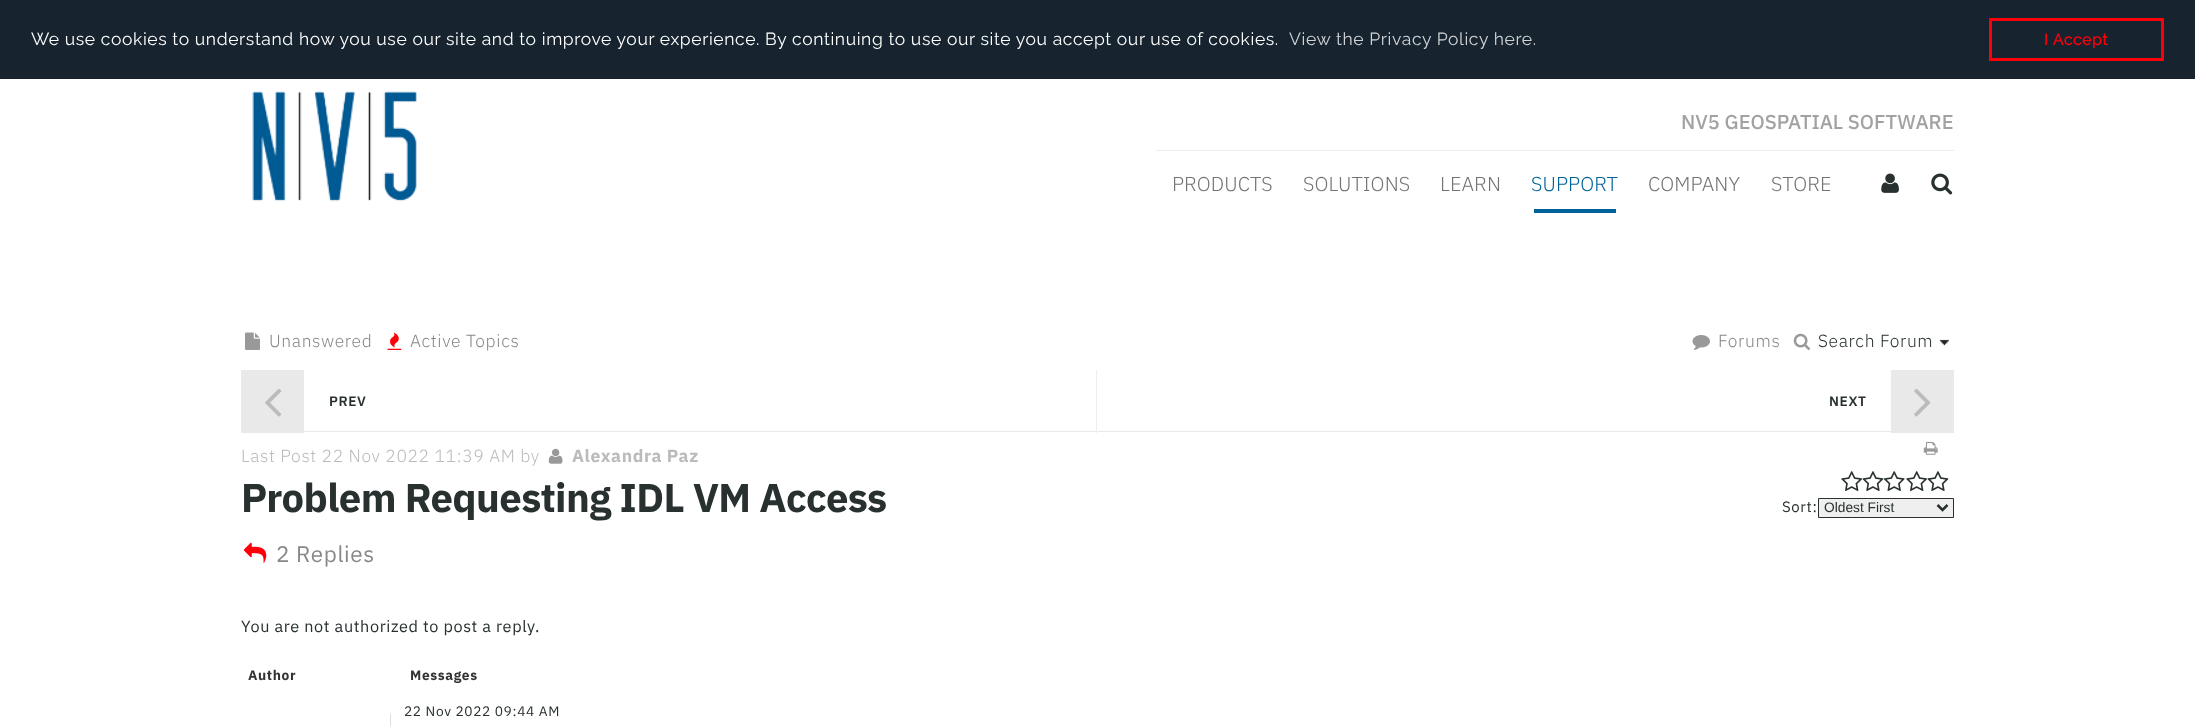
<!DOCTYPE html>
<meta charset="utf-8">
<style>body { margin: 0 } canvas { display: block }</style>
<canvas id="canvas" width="2195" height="726"></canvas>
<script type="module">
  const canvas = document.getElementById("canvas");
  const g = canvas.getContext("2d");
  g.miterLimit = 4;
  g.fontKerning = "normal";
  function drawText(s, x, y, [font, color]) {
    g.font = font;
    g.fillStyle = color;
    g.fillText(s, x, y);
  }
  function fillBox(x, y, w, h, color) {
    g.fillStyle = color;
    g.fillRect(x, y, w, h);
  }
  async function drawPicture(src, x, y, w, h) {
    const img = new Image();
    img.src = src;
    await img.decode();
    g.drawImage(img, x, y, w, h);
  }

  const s1 = ["100 17.5px Raleway", "#FFFFFF"];
  const s2 = ["100 17.5px Raleway", "#D1D3D6"];
  const s3 = ["bold 15.75px Raleway", "#FF000A"];
  const s4 = ["500 20px IBM Plex Sans", "#A2A2A2"];
  const s5 = ["300 20px IBM Plex Sans", "#737373"];
  const s6 = ["300 20px IBM Plex Sans", "#006298"];
  const s7 = ["300 17.5px IBM Plex Sans", "#888888"];
  const s8 = ["300 17.5px IBM Plex Sans", "#283030"];
  const s9 = ["600 13.75px IBM Plex Sans", "#283030"];
  const s10 = ["300 17.5px IBM Plex Sans", "#BBBBBB"];
  const s11 = ["bold 17.5px IBM Plex Sans", "#BBBBBB"];
  const s12 = ["bold 40px IBM Plex Sans", "#283030"];
  const s13 = ["22.5px IBM Plex Sans", "#888888"];
  const s14 = ["15px IBM Plex Sans", "#283030"];
  const s15 = ["13.75px Liberation Sans", "#283030"];
  const s16 = ["16.25px IBM Plex Sans", "#283030"];
  const s17 = ["bold 13.75px IBM Plex Sans", "#333333"];
  const s18 = ["13.75px IBM Plex Sans", "#283030"];

  fillBox(0, 0, 2195, 726, "#172430");
  g.letterSpacing = "0.62px";
  drawText("We use cookies to understand how you use our site and to improve your experience. By continuing to use our site you accept our use of cookies.", 31, 45, s1);
  drawText("View the Privacy Policy here.", 1289, 45, s2);
  g.strokeStyle = "#FF000A";
  g.lineWidth = 3;
  g.strokeRect(1990.5, 19.5, 172, 40);
  drawText("I Accept", 2044, 45, s3);
  fillBox(0, 79, 2195, 647, "#FFFFFF");
  await drawPicture("pic1.png", 252, 91, 165, 111);
  fillBox(1156, 150, 798, 1, "#EDEDED");
  g.letterSpacing = "0px";
  drawText("NV5 GEOSPATIAL SOFTWARE", 1681, 129, s4);
  g.letterSpacing = "0.1px";
  drawText("PRODUCTS", 1172, 191, s5);
  drawText("SOLUTIONS", 1303, 191, s5);
  drawText("LEARN", 1440, 191, s5);
  drawText("SUPPORT", 1531, 191, s6);
  fillBox(1534, 209, 82, 4, "#006298");
  drawText("COMPANY", 1648, 191, s5);
  drawText("STORE", 1771, 191, s5);
  await drawPicture("pic2.png", 1881, 173, 18, 20);
  await drawPicture("pic3.png", 1931, 173, 22, 22);
  await drawPicture("pic4.png", 245, 332, 15, 18);
  g.letterSpacing = "0.62px";
  drawText("Unanswered", 269, 347, s7);
  await drawPicture("pic5.png", 387, 332, 15, 18);
  drawText("Active Topics", 410, 347, s7);
  await drawPicture("pic6.png", 1692, 335, 18, 15);
  drawText("Forums", 1718, 347, s7);
  await drawPicture("pic7.png", 1793, 333, 17, 17);
  drawText("Search Forum", 1818, 347, s8);
  await drawPicture("pic8.png", 1939, 339, 10, 7);
  fillBox(304, 431, 1587, 1, "#E9E9E9");
  fillBox(1096, 370, 1, 63, "#EEEEEE");
  fillBox(241, 370, 63, 63, "#E9E9E9");
  await drawPicture("pic9.png", 265, 389, 17, 28);
  drawText("PREV", 329, 406, s9);
  drawText("NEXT", 1829, 406, s9);
  fillBox(1891, 370, 63, 63, "#E9E9E9");
  await drawPicture("pic10.png", 1914, 388, 17, 29);
  drawText("Last Post 22 Nov 2022 11:39 AM by", 241, 462, s10);
  await drawPicture("pic11.png", 548, 448, 15, 16);
  drawText("Alexandra Paz", 572, 462, s11);
  g.letterSpacing = "-0.6px";
  drawText("Problem Requesting IDL VM Access", 241, 512, s12);
  await drawPicture("pic12.png", 243, 542, 24, 21);
  g.letterSpacing = "0.62px";
  drawText("2 Replies", 276, 562, s13);
  await drawPicture("pic13.png", 1923, 441, 15, 14);
  await drawPicture("pic14.png", 1841, 471, 22, 20);
  await drawPicture("pic15.png", 1862, 471, 22, 20);
  await drawPicture("pic16.png", 1883, 471, 22, 20);
  await drawPicture("pic14.png", 1906, 471, 22, 20);
  await drawPicture("pic15.png", 1927, 471, 22, 20);
  drawText("Sort:", 1782, 512, s14);
  g.fillStyle = "#EFEFEF";
  g.beginPath();
  g.rect(1818.5, 498.5, 135, 19);
  g.fill();
  g.strokeStyle = "#283030";
  g.lineWidth = 1;
  g.stroke();
  g.beginPath();
  g.moveTo(1937.5, 505);
  g.lineTo(1942.5, 510);
  g.lineTo(1947.5, 505);
  g.lineWidth = 2.5;
  g.stroke();
  g.letterSpacing = "0px";
  drawText("Oldest First", 1824, 512, s15);
  g.letterSpacing = "0.62px";
  drawText("You are not authorized to post a reply.", 241, 632, s16);
  drawText("Author", 248, 680, s17);
  drawText("Messages", 410, 680, s17);
  drawText("22 Nov 2022 09:44 AM", 404, 716, s18);
  fillBox(390, 714, 1, 12, "#DEDEDE");
</script>
